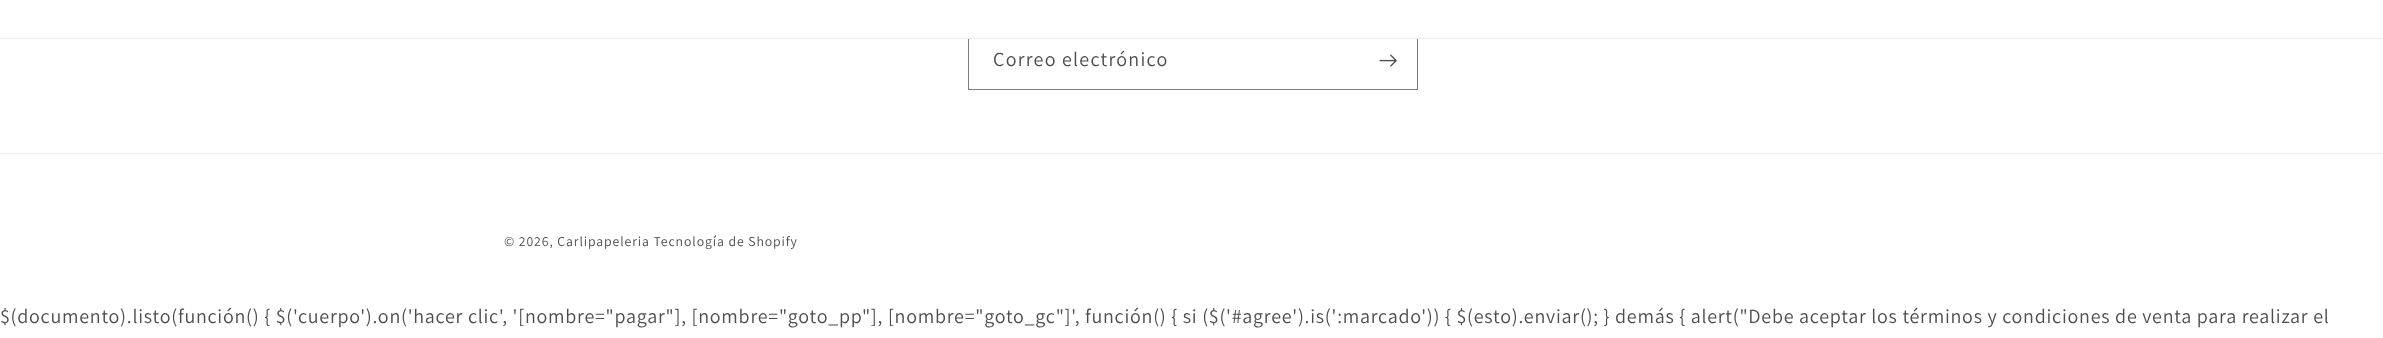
<!DOCTYPE html>
<meta charset="utf-8">
<style>body { margin: 0 } canvas { display: block }</style>
<canvas id="canvas" width="2383" height="338"></canvas>
<script type="module">
  const canvas = document.getElementById("canvas");
  const g = canvas.getContext("2d");
  g.miterLimit = 4;
  g.fontKerning = "normal";
  function drawText(s, x, y, [font, color]) {
    g.font = font;
    g.fillStyle = color;
    g.fillText(s, x, y);
  }
  function fillBox(x, y, w, h, color) {
    g.fillStyle = color;
    g.fillRect(x, y, w, h);
  }
  async function drawPicture(src, x, y, w, h) {
    const img = new Image();
    img.src = src;
    await img.decode();
    g.drawImage(img, x, y, w, h);
  }

  const s1 = ["20px Assistant", "#4D4D4D"];
  const s2 = ["13.75px Assistant", "#4D4D4D"];

  fillBox(0, 0, 2383, 338, "#FFFFFF");
  g.strokeStyle = "#7D7D7D";
  g.strokeRect(968.5, 31.5, 449, 58);
  fillBox(968, 31, 450, 7, "#FFFFFF");
  fillBox(0, 38, 2383, 1, "#ECECEC");
  g.letterSpacing = "1.25px";
  drawText("Correo electrónico", 993, 66, s1);
  await drawPicture("pic1.png", 1379, 54, 18, 13);
  fillBox(0, 153, 2383, 1, "#ECECEC");
  g.letterSpacing = "0.9px";
  drawText("© 2026, Carlipapeleria Tecnología de Shopify", 504, 246, s2);
  g.letterSpacing = "0.75px";
  drawText("$(documento).listo(función() { $('cuerpo').on('hacer clic', '[nombre=\"pagar\"], [nombre=\"goto_pp\"], [nombre=\"goto_gc\"]', función() { si ($('#agree').is(':marcado')) { $(esto).enviar(); } demás { alert(\"Debe aceptar los términos y condiciones de venta para realizar el", 0, 323, s1);
</script>
